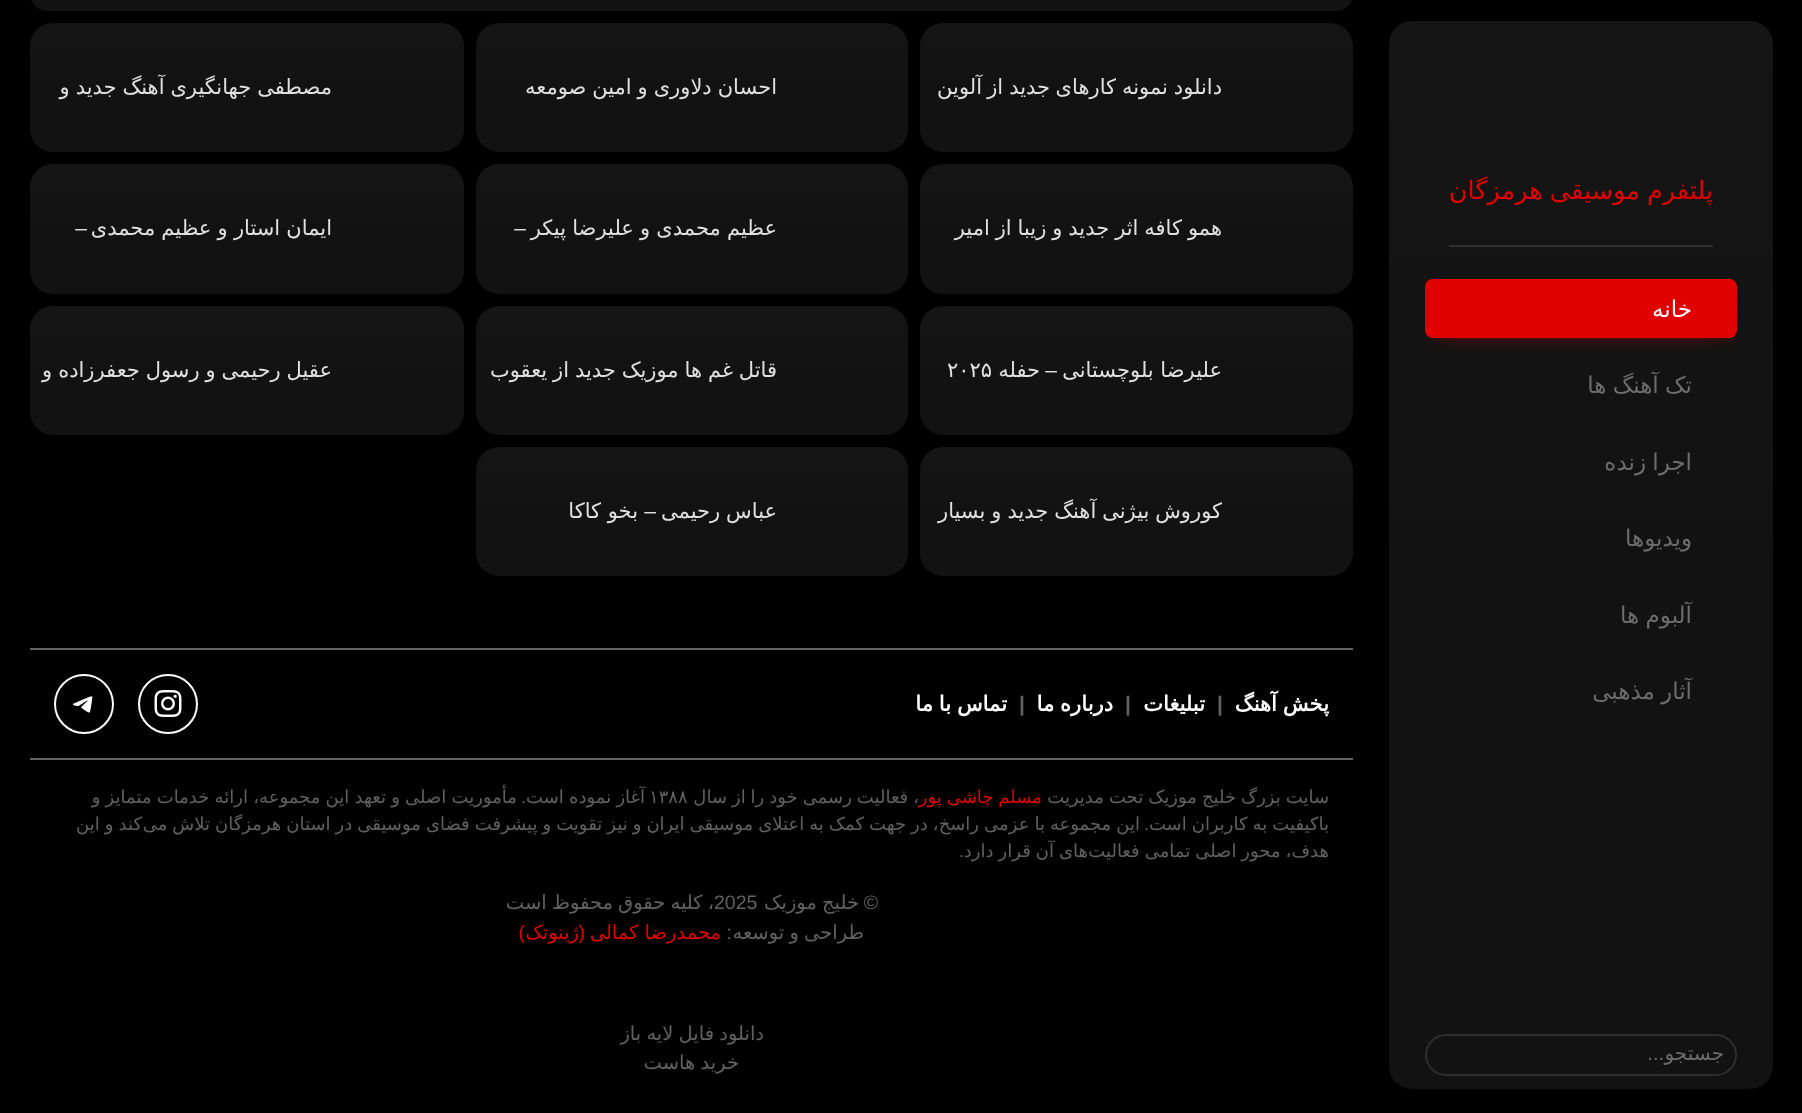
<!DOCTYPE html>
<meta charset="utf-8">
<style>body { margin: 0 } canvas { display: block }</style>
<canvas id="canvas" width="1802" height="1113"></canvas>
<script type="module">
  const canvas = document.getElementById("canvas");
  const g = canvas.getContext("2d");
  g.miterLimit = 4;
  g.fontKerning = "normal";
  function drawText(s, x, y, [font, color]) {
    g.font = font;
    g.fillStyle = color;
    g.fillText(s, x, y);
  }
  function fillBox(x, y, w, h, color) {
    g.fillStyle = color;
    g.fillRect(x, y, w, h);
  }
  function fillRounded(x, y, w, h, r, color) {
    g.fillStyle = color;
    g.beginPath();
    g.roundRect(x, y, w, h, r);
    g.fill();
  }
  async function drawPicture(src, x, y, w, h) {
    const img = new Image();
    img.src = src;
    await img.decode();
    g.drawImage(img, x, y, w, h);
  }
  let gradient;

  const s1 = ["25.5px DejaVu Sans", "#E00000"];
  const s2 = ["23px DejaVu Sans", "#FFFFFF"];
  const s3 = ["23px DejaVu Sans", "#6C6C6C"];
  const s4 = ["20px DejaVu Sans", "#6C6C6C"];
  const s5 = ["20px Liberation Sans", "#6C6C6C"];
  const s6 = ["21px DejaVu Sans", "#E0E0E0"];
  const s7 = ["21px Liberation Sans", "#E0E0E0"];
  const s8 = ["bold 21px DejaVu Sans", "#FFFFFF"];
  const s9 = ["bold 21px Liberation Sans", "#616161"];
  const s10 = ["18px DejaVu Sans", "#616161"];
  const s11 = ["18px DejaVu Sans", "#E00000"];
  const s12 = ["18px Liberation Sans", "#616161"];
  const s13 = ["19.5px Liberation Sans", "#616161"];
  const s14 = ["19.5px DejaVu Sans", "#616161"];
  const s15 = ["19.5px DejaVu Sans", "#E00000"];
  const s16 = ["19.5px Liberation Sans", "#E00000"];

  fillBox(0, 0, 1802, 1113, "#000000");
  gradient = g.createLinearGradient(1581, 21, 1581, 1089);
  gradient.addColorStop(0, "#151515");
  gradient.addColorStop(0.5, "#121212");
  g.fillStyle = gradient;
  g.beginPath();
  g.roundRect(1389, 21, 384, 1068, 23);
  g.fill();
  fillBox(1449, 245, 264, 2, "#303030");
  g.wordSpacing = "-1px";
  g.direction = "rtl";
  drawText("پلتفرم موسیقی هرمزگان", 1713, 199, s1);
  g.save();
  g.beginPath();
  g.rect(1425, 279, 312, 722);
  g.clip();
  g.filter = "blur(11px)";
  g.beginPath();
  g.rect(1434, 288, 294, 41);
  g.fill();
  g.filter = "none";
  g.restore();
  fillRounded(1425, 279, 312, 59, 8, "#E00000");
  g.wordSpacing = "0px";
  drawText("خانه", 1692, 317, s2);
  g.wordSpacing = "-1px";
  drawText("تک آهنگ ها", 1692, 393, s3);
  drawText("اجرا زنده", 1692, 470, s3);
  g.wordSpacing = "0px";
  drawText("ویدیوها", 1692, 546, s3);
  g.wordSpacing = "-1px";
  drawText("آلبوم ها", 1692, 623, s3);
  drawText("آثار مذهبی", 1692, 699, s3);
  g.beginPath();
  g.roundRect(1426, 1035, 310, 40, 20);
  g.strokeStyle = "#2E2E2E";
  g.lineWidth = 2;
  g.stroke();
  g.wordSpacing = "0px";
  drawText("جستجو", 1724, 1060, s4);
  drawText("...", 1664, 1060, s5);
  gradient = g.createLinearGradient(692, -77, 692, 11);
  gradient.addColorStop(0, "#151515");
  gradient.addColorStop(0.5, "#121212");
  g.fillStyle = gradient;
  g.beginPath();
  g.roundRect(30, -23, 1323, 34, 23);
  g.fill();
  gradient = g.createLinearGradient(1136, 22, 1136, 152);
  gradient.addColorStop(0, "#151515");
  gradient.addColorStop(0.5, "#121212");
  g.fillStyle = gradient;
  g.beginPath();
  g.roundRect(920, 23, 433, 129, 23);
  g.fill();
  g.wordSpacing = "-0.75px";
  drawText("دانلود نمونه کارهای", 1222, 94, s6);
  drawText("جدید از", 1050, 94, s6);
  g.wordSpacing = "0px";
  drawText("آلوین", 982, 94, s6);
  gradient = g.createLinearGradient(692, 22, 692, 152);
  gradient.addColorStop(0, "#151515");
  gradient.addColorStop(0.5, "#121212");
  g.fillStyle = gradient;
  g.beginPath();
  g.roundRect(476, 23, 432, 129, 23);
  g.fill();
  g.wordSpacing = "-0.75px";
  drawText("احسان دلاوری و امین صومعه", 777, 94, s6);
  gradient = g.createLinearGradient(247, 22, 247, 152);
  gradient.addColorStop(0, "#151515");
  gradient.addColorStop(0.5, "#121212");
  g.fillStyle = gradient;
  g.beginPath();
  g.roundRect(30, 23, 434, 129, 23);
  g.fill();
  drawText("مصطفی جهانگیری آهنگ جدید و", 332, 94, s6);
  gradient = g.createLinearGradient(1136, 163, 1136, 294);
  gradient.addColorStop(0, "#151515");
  gradient.addColorStop(0.5, "#121212");
  g.fillStyle = gradient;
  g.beginPath();
  g.roundRect(920, 164, 433, 130, 23);
  g.fill();
  drawText("همو کافه اثر جدید و زیبا از امیر", 1222, 235, s6);
  gradient = g.createLinearGradient(692, 163, 692, 294);
  gradient.addColorStop(0, "#151515");
  gradient.addColorStop(0.5, "#121212");
  g.fillStyle = gradient;
  g.beginPath();
  g.roundRect(476, 164, 432, 130, 23);
  g.fill();
  g.wordSpacing = "-0.5px";
  drawText("عظیم محمدی و علیرضا پیکر", 777, 235, s6);
  g.wordSpacing = "0px";
  drawText("–", 526, 235, s7);
  gradient = g.createLinearGradient(247, 163, 247, 294);
  gradient.addColorStop(0, "#151515");
  gradient.addColorStop(0.5, "#121212");
  g.fillStyle = gradient;
  g.beginPath();
  g.roundRect(30, 164, 434, 130, 23);
  g.fill();
  g.wordSpacing = "-0.5px";
  drawText("ایمان استار و عظیم محمدی", 332, 235, s6);
  g.wordSpacing = "0px";
  drawText("–", 87, 235, s7);
  gradient = g.createLinearGradient(1136, 306, 1136, 435);
  gradient.addColorStop(0, "#151515");
  gradient.addColorStop(0.5, "#121212");
  g.fillStyle = gradient;
  g.beginPath();
  g.roundRect(920, 306, 433, 129, 23);
  g.fill();
  drawText("علیرضا بلوچستانی", 1222, 377, s6);
  drawText("–", 1057, 377, s7);
  drawText("حفله", 1040, 377, s6);
  g.direction = "ltr";
  drawText("۲۰۲۵", 947, 377, s6);
  gradient = g.createLinearGradient(692, 306, 692, 435);
  gradient.addColorStop(0, "#151515");
  gradient.addColorStop(0.5, "#121212");
  g.fillStyle = gradient;
  g.beginPath();
  g.roundRect(476, 306, 432, 129, 23);
  g.fill();
  g.wordSpacing = "-0.75px";
  g.direction = "rtl";
  drawText("قاتل غم ها موزیک جدید از یعقوب", 777, 377, s6);
  gradient = g.createLinearGradient(247, 306, 247, 435);
  gradient.addColorStop(0, "#151515");
  gradient.addColorStop(0.5, "#121212");
  g.fillStyle = gradient;
  g.beginPath();
  g.roundRect(30, 306, 434, 129, 23);
  g.fill();
  drawText("عقیل رحیمی و رسول جعفرزاده و", 332, 377, s6);
  gradient = g.createLinearGradient(1136, 447, 1136, 576);
  gradient.addColorStop(0, "#151515");
  gradient.addColorStop(0.5, "#121212");
  g.fillStyle = gradient;
  g.beginPath();
  g.roundRect(920, 447, 433, 129, 23);
  g.fill();
  drawText("کوروش بیژنی آهنگ جدید و بسیار", 1222, 518, s6);
  gradient = g.createLinearGradient(692, 447, 692, 576);
  gradient.addColorStop(0, "#151515");
  gradient.addColorStop(0.5, "#121212");
  g.fillStyle = gradient;
  g.beginPath();
  g.roundRect(476, 447, 432, 129, 23);
  g.fill();
  drawText("عباس رحیمی", 777, 518, s6);
  g.wordSpacing = "0px";
  drawText("–", 656, 518, s7);
  drawText("بخو کاکا", 638, 518, s6);
  fillBox(30, 648, 1323, 2, "#616161");
  fillBox(30, 758, 1323, 2, "#616161");
  g.wordSpacing = "-0.75px";
  drawText("پخش آهنگ", 1329, 711, s8);
  g.wordSpacing = "0px";
  g.direction = "ltr";
  drawText("|", 1217, 711, s9);
  g.direction = "rtl";
  drawText("تبلیغات", 1205, 711, s8);
  g.direction = "ltr";
  drawText("|", 1125, 711, s9);
  g.wordSpacing = "-0.75px";
  g.direction = "rtl";
  drawText("درباره ما", 1113, 711, s8);
  g.wordSpacing = "0px";
  g.direction = "ltr";
  drawText("|", 1019, 711, s9);
  g.wordSpacing = "-0.75px";
  g.direction = "rtl";
  drawText("تماس با ما", 1007, 711, s8);
  g.beginPath();
  g.arc(168, 704, 29, 0, Math.PI * 2);
  g.strokeStyle = "#FFFFFF";
  g.stroke();
  await drawPicture("pic1.png", 154, 690, 28, 27);
  g.beginPath();
  g.arc(84, 704, 29, 0, Math.PI * 2);
  g.stroke();
  await drawPicture("pic2.png", 72, 696, 21, 17);
  drawText("سایت بزرگ خلیج موزیک تحت مدیریت", 1329, 803, s10);
  drawText("مسلم چاشی پور", 1042, 803, s11);
  drawText("، فعالیت رسمی خود را از سال", 919, 803, s10);
  g.wordSpacing = "0px";
  g.direction = "ltr";
  drawText("۱۳۸۸", 649, 803, s10);
  g.wordSpacing = "-0.5px";
  g.direction = "rtl";
  drawText("آغاز نموده است", 645, 803, s10);
  g.wordSpacing = "0px";
  drawText(".", 526, 803, s12);
  g.wordSpacing = "-0.5px";
  drawText("مأموریت اصلی و تعهد این مجموعه، ارائه خدمات متمایز و", 517, 803, s10);
  g.wordSpacing = "-0.7px";
  drawText("باکیفیت به کاربران است", 1329, 830, s10);
  g.wordSpacing = "0px";
  drawText(".", 1149, 830, s12);
  g.wordSpacing = "-0.7px";
  drawText("این مجموعه با عزمی راسخ، در جهت کمک به اعتلای موسیقی ایران و نیز تقویت و پیشرفت فضای موسیقی در استان هرمزگان تلاش می", 1140, 830, s10);
  drawText("کند و این", 142, 830, s10);
  g.wordSpacing = "-0.75px";
  drawText("هدف، محور اصلی تمامی فعالیت", 1329, 857, s10);
  drawText("های آن قرار دارد", 1088, 857, s10);
  g.wordSpacing = "0px";
  drawText(".", 964, 857, s12);
  drawText("©", 878, 909, s13);
  g.wordSpacing = "-1px";
  drawText("خلیج موزیک", 859, 909, s14);
  g.wordSpacing = "0px";
  g.direction = "ltr";
  drawText("2025", 714, 909, s13);
  g.wordSpacing = "-1px";
  g.direction = "rtl";
  drawText("، کلیه حقوق محفوظ است", 714, 909, s14);
  drawText("طراحی و توسعه", 864, 939, s14);
  g.wordSpacing = "0px";
  drawText(":", 732, 939, s13);
  drawText("محمدرضا کمالی", 721, 939, s15);
  drawText("(", 585, 939, s16);
  drawText("ژینوتک", 579, 939, s15);
  drawText(")", 525, 939, s16);
  g.wordSpacing = "-1px";
  drawText("دانلود فایل لایه باز", 764, 1040, s14);
  drawText("خرید هاست", 739, 1069, s14);
</script>
